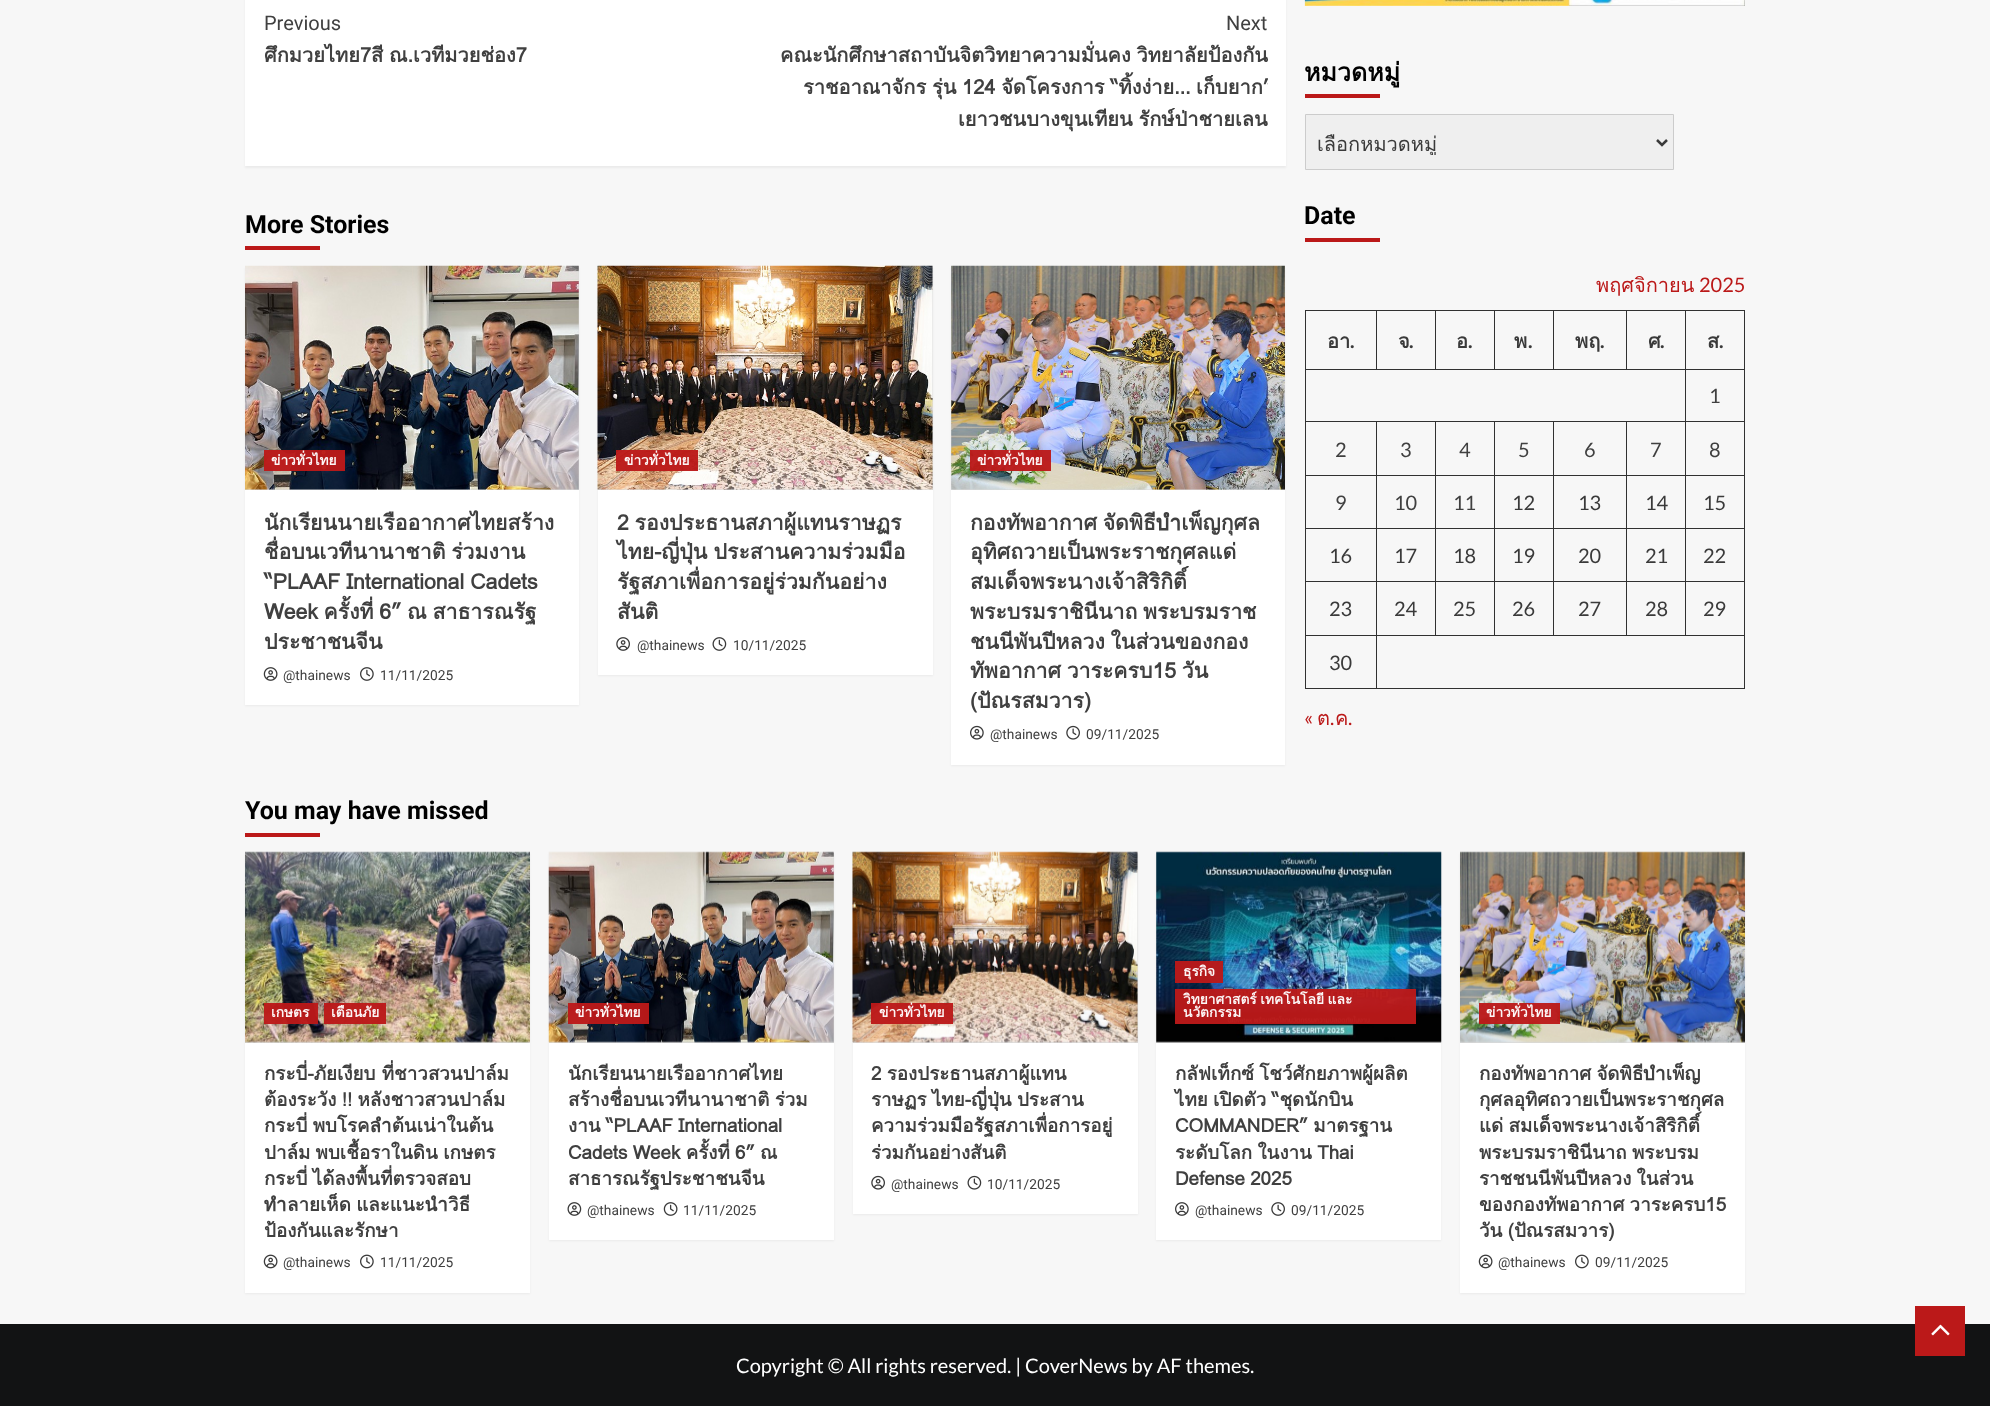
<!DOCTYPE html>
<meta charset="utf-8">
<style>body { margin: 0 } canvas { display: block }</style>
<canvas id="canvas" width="1990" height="1406"></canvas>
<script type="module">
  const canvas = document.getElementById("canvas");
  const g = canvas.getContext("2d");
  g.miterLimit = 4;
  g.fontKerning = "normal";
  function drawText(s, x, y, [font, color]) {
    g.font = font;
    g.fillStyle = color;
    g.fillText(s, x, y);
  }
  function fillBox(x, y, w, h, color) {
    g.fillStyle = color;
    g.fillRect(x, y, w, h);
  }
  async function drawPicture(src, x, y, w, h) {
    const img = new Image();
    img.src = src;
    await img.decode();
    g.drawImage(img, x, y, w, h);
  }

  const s1 = ["20px Roboto", "#404040"];
  const s2 = ["bold 20px Loma", "#404040"];
  const s3 = ["bold 25px Roboto", "#000000"];
  const s4 = ["bold 13.75px Loma", "#FCF6F6"];
  const s5 = ["bold 21.25px Loma", "#404040"];
  const s6 = ["13.75px Roboto", "#404040"];
  const s7 = ["bold 25px Loma", "#000000"];
  const s8 = ["20px Loma", "#3A3A3A"];
  const s9 = ["20px Loma", "#BB1919"];
  const s10 = ["20px Lato", "#BB1919"];
  const s11 = ["bold 20px Loma", "#3A3A3A"];
  const s12 = ["bold 20px Lato", "#3A3A3A"];
  const s13 = ["20px Lato", "#404040"];
  const s14 = ["20px Lato", "#3A3A3A"];
  const s15 = ["bold 18.75px Loma", "#404040"];
  const s16 = ["20px Lato", "#FFFFFF"];

  fillBox(0, 0, 1990, 1406, "#F7F7F7");
  g.fillStyle = "rgba(0, 0, 0, 0.05)";
  g.filter = "blur(1px)";
  g.beginPath();
  g.rect(245, -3, 1041, 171);
  g.fill();
  g.filter = "none";
  fillBox(245, 0, 1041, 166, "#FFFFFF");
  drawText("Previous", 264, 30, s1);
  g.save();
  g.beginPath();
  g.rect(264, 0, 1004, 148);
  g.clip();
  g.wordSpacing = "-1px";
  drawText("ศึกมวยไทย7สี ณ.เวทีมวยช่อง7", 264, 62, s2);
  g.restore();
  drawText("Next", 1226, 30, s1);
  g.wordSpacing = "-1px";
  drawText("คณะนักศึกษาสถาบันจิตวิทยาความมั่นคง วิทยาลัยป้องกัน", 780, 62, s2);
  g.save();
  g.beginPath();
  g.rect(264, 0, 1004, 148);
  g.clip();
  drawText("ราชอาณาจักร รุ่น 124 จัดโครงการ “ทิ้งง่าย… เก็บยาก”", 803, 94, s2);
  g.restore();
  drawText("เยาวชนบางขุนเทียน รักษ์ป่าชายเลน", 958, 126, s2);
  g.wordSpacing = "0px";
  drawText("More Stories", 245, 233, s3);
  fillBox(245, 246, 75, 4, "#BB1919");
  g.fillStyle = "rgba(0, 0, 0, 0.05)";
  g.filter = "blur(1px)";
  g.beginPath();
  g.rect(245, 268, 334, 438);
  g.fill();
  g.filter = "none";
  fillBox(245, 490, 334, 215, "#FFFFFF");
  fillBox(245, 266, 334, 224, "#D8D8D8");
  await drawPicture("pic1.png", 245, 265, 334, 225);
  fillBox(264, 450, 81, 21, "rgba(187, 25, 25, 0.96)");
  drawText("ข่าวทั่วไทย", 271, 465, s4);
  drawText("นักเรียนนายเรืออากาศไทยสร้าง", 264, 530, s5);
  g.wordSpacing = "-1.5px";
  drawText("ชื่อบนเวทีนานาชาติ ร่วมงาน", 264, 559, s5);
  g.wordSpacing = "-1px";
  drawText("“PLAAF International Cadets", 264, 589, s5);
  g.wordSpacing = "-1.5px";
  drawText("Week ครั้งที่ 6” ณ สาธารณรัฐ", 264, 619, s5);
  g.wordSpacing = "0px";
  drawText("ประชาชนจีน", 264, 649, s5);
  await drawPicture("pic2.png", 263, 667, 15, 14);
  drawText("@thainews", 283, 680, s6);
  await drawPicture("pic3.png", 360, 667, 14, 14);
  drawText("11/11/2025", 380, 680, s6);
  g.fillStyle = "rgba(0, 0, 0, 0.05)";
  g.filter = "blur(1px)";
  g.beginPath();
  g.rect(598, 268, 335, 408);
  g.fill();
  g.filter = "none";
  fillBox(598, 490, 335, 185, "#FFFFFF");
  fillBox(598, 266, 335, 224, "#D8D8D8");
  await drawPicture("pic4.png", 597, 265, 336, 225);
  fillBox(616, 450, 82, 21, "rgba(187, 25, 25, 0.96)");
  drawText("ข่าวทั่วไทย", 624, 465, s4);
  g.wordSpacing = "-1.5px";
  drawText("2 รองประธานสภาผู้แทนราษฏร", 617, 530, s5);
  g.wordSpacing = "-1px";
  drawText("ไทย-ญี่ปุ่น ประสานความร่วมมือ", 617, 559, s5);
  g.wordSpacing = "0px";
  drawText("รัฐสภาเพื่อการอยู่ร่วมกันอย่าง", 617, 589, s5);
  drawText("สันติ", 617, 619, s5);
  await drawPicture("pic5.png", 616, 637, 14, 14);
  drawText("@thainews", 637, 650, s6);
  await drawPicture("pic6.png", 712, 637, 15, 14);
  drawText("10/11/2025", 733, 650, s6);
  g.fillStyle = "rgba(0, 0, 0, 0.05)";
  g.filter = "blur(1px)";
  g.beginPath();
  g.rect(951, 268, 334, 498);
  g.fill();
  g.filter = "none";
  fillBox(951, 490, 334, 275, "#FFFFFF");
  fillBox(951, 266, 334, 224, "#D8D8D8");
  await drawPicture("pic7.png", 951, 265, 334, 225);
  fillBox(970, 450, 81, 21, "rgba(187, 25, 25, 0.96)");
  drawText("ข่าวทั่วไทย", 977, 465, s4);
  g.wordSpacing = "-1.5px";
  drawText("กองทัพอากาศ จัดพิธีบำเพ็ญกุศล", 970, 530, s5);
  g.wordSpacing = "0px";
  drawText("อุทิศถวายเป็นพระราชกุศลแด่", 970, 559, s5);
  drawText("สมเด็จพระนางเจ้าสิริกิติ์", 970, 589, s5);
  g.wordSpacing = "-1.5px";
  drawText("พระบรมราชินีนาถ พระบรมราช", 970, 619, s5);
  drawText("ชนนีพันปีหลวง ในส่วนของกอง", 970, 649, s5);
  drawText("ทัพอากาศ วาระครบ15 วัน", 970, 678, s5);
  g.wordSpacing = "0px";
  drawText("(ปัณรสมวาร)", 970, 708, s5);
  await drawPicture("pic8.png", 970, 725, 14, 15);
  drawText("@thainews", 990, 739, s6);
  await drawPicture("pic9.png", 1066, 725, 14, 15);
  drawText("09/11/2025", 1086, 739, s6);
  await drawPicture("pic10.png", 1304, 0, 441, 6);
  drawText("หมวดหมู่", 1304, 81, s7);
  fillBox(1305, 94, 75, 4, "#BB1919");
  g.fillStyle = "#EFEFEF";
  g.beginPath();
  g.rect(1305.5, 114.5, 368, 55);
  g.fill();
  g.strokeStyle = "#CCCCCC";
  g.stroke();
  g.beginPath();
  g.moveTo(1657, 140);
  g.lineTo(1662, 145);
  g.lineTo(1667, 140);
  g.strokeStyle = "#3A3A3A";
  g.lineWidth = 2.5;
  g.stroke();
  g.save();
  g.beginPath();
  g.rect(1318, 129, 328, 26);
  g.clip();
  drawText("เลือกหมวดหมู่", 1317, 151, s8);
  g.restore();
  drawText("Date", 1304, 224, s3);
  fillBox(1305, 238, 75, 4, "#BB1919");
  drawText("พฤศจิกายน", 1596, 292, s9);
  drawText("2025", 1699, 292, s10);
  fillBox(1685, 310, 60, 1, "#313131");
  fillBox(1685, 369, 60, 1, "#313131");
  fillBox(1685, 421, 60, 1, "#313131");
  fillBox(1685, 475, 60, 1, "#313131");
  fillBox(1685, 528, 60, 1, "#313131");
  fillBox(1685, 581, 60, 1, "#313131");
  fillBox(1376, 635, 369, 1, "#313131");
  fillBox(1685, 581, 1, 55, "#313131");
  fillBox(1626, 581, 60, 1, "#313131");
  fillBox(1685, 528, 1, 55, "#313131");
  fillBox(1626, 528, 60, 1, "#313131");
  fillBox(1685, 475, 1, 54, "#313131");
  fillBox(1626, 475, 60, 1, "#313131");
  fillBox(1685, 421, 1, 55, "#313131");
  fillBox(1626, 421, 60, 1, "#313131");
  fillBox(1685, 369, 1, 54, "#313131");
  fillBox(1305, 369, 381, 1, "#313131");
  fillBox(1685, 310, 1, 60, "#313131");
  fillBox(1626, 310, 60, 1, "#313131");
  fillBox(1626, 310, 1, 60, "#313131");
  fillBox(1553, 310, 75, 1, "#313131");
  fillBox(1553, 310, 1, 60, "#313131");
  fillBox(1494, 310, 60, 1, "#313131");
  fillBox(1494, 310, 1, 60, "#313131");
  fillBox(1435, 310, 60, 1, "#313131");
  fillBox(1435, 310, 1, 60, "#313131");
  fillBox(1376, 310, 60, 1, "#313131");
  fillBox(1376, 310, 1, 60, "#313131");
  fillBox(1305, 310, 73, 1, "#313131");
  fillBox(1626, 581, 1, 55, "#313131");
  fillBox(1553, 581, 75, 1, "#313131");
  fillBox(1626, 528, 1, 55, "#313131");
  fillBox(1553, 528, 75, 1, "#313131");
  fillBox(1626, 475, 1, 54, "#313131");
  fillBox(1553, 475, 75, 1, "#313131");
  fillBox(1626, 421, 1, 55, "#313131");
  fillBox(1553, 421, 75, 1, "#313131");
  fillBox(1553, 581, 1, 55, "#313131");
  fillBox(1494, 581, 60, 1, "#313131");
  fillBox(1553, 528, 1, 55, "#313131");
  fillBox(1494, 528, 60, 1, "#313131");
  fillBox(1553, 475, 1, 54, "#313131");
  fillBox(1494, 475, 60, 1, "#313131");
  fillBox(1553, 421, 1, 55, "#313131");
  fillBox(1494, 421, 60, 1, "#313131");
  fillBox(1494, 581, 1, 55, "#313131");
  fillBox(1435, 581, 60, 1, "#313131");
  fillBox(1494, 528, 1, 55, "#313131");
  fillBox(1435, 528, 60, 1, "#313131");
  fillBox(1494, 475, 1, 54, "#313131");
  fillBox(1435, 475, 60, 1, "#313131");
  fillBox(1494, 421, 1, 55, "#313131");
  fillBox(1435, 421, 60, 1, "#313131");
  fillBox(1435, 581, 1, 55, "#313131");
  fillBox(1376, 581, 60, 1, "#313131");
  fillBox(1435, 528, 1, 55, "#313131");
  fillBox(1376, 528, 60, 1, "#313131");
  fillBox(1435, 475, 1, 54, "#313131");
  fillBox(1376, 475, 60, 1, "#313131");
  fillBox(1435, 421, 1, 55, "#313131");
  fillBox(1376, 421, 60, 1, "#313131");
  fillBox(1744, 635, 1, 54, "#313131");
  fillBox(1376, 688, 369, 1, "#313131");
  fillBox(1376, 635, 1, 54, "#313131");
  fillBox(1305, 635, 73, 1, "#313131");
  fillBox(1376, 581, 1, 55, "#313131");
  fillBox(1305, 581, 73, 1, "#313131");
  fillBox(1376, 528, 1, 55, "#313131");
  fillBox(1305, 528, 73, 1, "#313131");
  fillBox(1376, 475, 1, 54, "#313131");
  fillBox(1305, 475, 73, 1, "#313131");
  fillBox(1376, 421, 1, 55, "#313131");
  fillBox(1305, 421, 73, 1, "#313131");
  fillBox(1305, 688, 73, 1, "#313131");
  fillBox(1305, 635, 1, 54, "#313131");
  fillBox(1305, 581, 1, 55, "#313131");
  fillBox(1305, 528, 1, 55, "#313131");
  fillBox(1305, 475, 1, 54, "#313131");
  fillBox(1305, 421, 1, 55, "#313131");
  fillBox(1305, 369, 1, 54, "#313131");
  fillBox(1305, 310, 1, 60, "#313131");
  drawText("อา", 1327, 348, s11);
  drawText(".", 1350, 348, s12);
  drawText("จ", 1398, 348, s11);
  drawText(".", 1409, 348, s12);
  drawText("อ", 1456, 348, s11);
  drawText(".", 1468, 348, s12);
  drawText("พ", 1514, 348, s11);
  drawText(".", 1528, 348, s12);
  drawText("พฤ", 1575, 348, s11);
  drawText(".", 1600, 348, s12);
  drawText("ศ", 1648, 348, s11);
  drawText(".", 1660, 348, s12);
  fillBox(1744, 581, 1, 55, "#313131");
  fillBox(1744, 528, 1, 55, "#313131");
  fillBox(1744, 475, 1, 54, "#313131");
  fillBox(1744, 421, 1, 55, "#313131");
  fillBox(1744, 369, 1, 54, "#313131");
  fillBox(1744, 310, 1, 60, "#313131");
  drawText("ส", 1707, 348, s11);
  drawText(".", 1719, 348, s12);
  drawText("1", 1709, 403, s13);
  drawText("2", 1335, 457, s13);
  drawText("3", 1400, 457, s13);
  drawText("4", 1459, 457, s13);
  drawText("5", 1518, 457, s13);
  drawText("6", 1584, 457, s13);
  drawText("7", 1650, 457, s13);
  drawText("8", 1709, 457, s13);
  drawText("9", 1335, 510, s13);
  drawText("10", 1394, 510, s13);
  drawText("11", 1453, 510, s13);
  drawText("12", 1512, 510, s14);
  drawText("13", 1578, 510, s14);
  drawText("14", 1645, 510, s14);
  drawText("15", 1703, 510, s14);
  drawText("16", 1329, 563, s14);
  drawText("17", 1394, 563, s14);
  drawText("18", 1453, 563, s14);
  drawText("19", 1512, 563, s14);
  drawText("20", 1578, 563, s14);
  drawText("21", 1645, 563, s14);
  drawText("22", 1703, 563, s14);
  drawText("23", 1329, 616, s14);
  drawText("24", 1394, 616, s14);
  drawText("25", 1453, 616, s14);
  drawText("26", 1512, 616, s14);
  drawText("27", 1578, 616, s14);
  drawText("28", 1645, 616, s14);
  drawText("29", 1703, 616, s14);
  drawText("30", 1329, 670, s14);
  drawText("«", 1304, 725, s10);
  drawText("ต", 1317, 725, s9);
  drawText(".", 1330, 725, s10);
  drawText("ค", 1335, 725, s9);
  drawText(".", 1348, 725, s10);
  drawText("You may have missed", 245, 819, s3);
  fillBox(245, 833, 75, 4, "#BB1919");
  g.fillStyle = "rgba(0, 0, 0, 0.05)";
  g.filter = "blur(1px)";
  g.beginPath();
  g.rect(245, 854, 285, 440);
  g.fill();
  g.filter = "none";
  fillBox(245, 1043, 285, 250, "#FFFFFF");
  fillBox(245, 1041, 285, 2, "#D8D8D8");
  await drawPicture("pic11.png", 245, 851, 285, 192);
  fillBox(264, 1003, 54, 21, "rgba(187, 25, 25, 0.96)");
  drawText("เกษตร", 271, 1017, s4);
  fillBox(324, 1003, 62, 21, "rgba(187, 25, 25, 0.96)");
  drawText("เตือนภัย", 331, 1017, s4);
  drawText("กระบี่-ภัยเงียบ ที่ชาวสวนปาล์ม", 264, 1080, s15);
  g.wordSpacing = "-1px";
  drawText("ต้องระวัง !! หลังชาวสวนปาล์ม", 264, 1106, s15);
  drawText("กระบี่ พบโรคลำต้นเน่าในต้น", 264, 1132, s15);
  drawText("ปาล์ม พบเชื้อราในดิน เกษตร", 264, 1159, s15);
  drawText("กระบี่ ได้ลงพื้นที่ตรวจสอบ", 264, 1185, s15);
  drawText("ทำลายเห็ด และแนะนำวิธี", 264, 1211, s15);
  g.wordSpacing = "0px";
  drawText("ป้องกันและรักษา", 264, 1237, s15);
  await drawPicture("pic12.png", 263, 1254, 15, 15);
  drawText("@thainews", 283, 1267, s6);
  await drawPicture("pic13.png", 360, 1254, 14, 15);
  drawText("11/11/2025", 380, 1267, s6);
  g.fillStyle = "rgba(0, 0, 0, 0.05)";
  g.filter = "blur(1px)";
  g.beginPath();
  g.rect(549, 854, 285, 387);
  g.fill();
  g.filter = "none";
  fillBox(549, 1043, 285, 197, "#FFFFFF");
  fillBox(549, 853, 285, 190, "#D8D8D8");
  await drawPicture("pic14.png", 548, 851, 286, 192);
  fillBox(568, 1003, 81, 21, "rgba(187, 25, 25, 0.96)");
  drawText("ข่าวทั่วไทย", 575, 1017, s4);
  drawText("นักเรียนนายเรืออากาศไทย", 568, 1080, s15);
  g.wordSpacing = "-1px";
  drawText("สร้างชื่อบนเวทีนานาชาติ ร่วม", 568, 1106, s15);
  drawText("งาน “PLAAF International", 568, 1132, s15);
  drawText("Cadets Week ครั้งที่ 6” ณ", 568, 1159, s15);
  g.wordSpacing = "0px";
  drawText("สาธารณรัฐประชาชนจีน", 568, 1185, s15);
  await drawPicture("pic15.png", 567, 1202, 15, 14);
  drawText("@thainews", 587, 1215, s6);
  await drawPicture("pic16.png", 663, 1202, 15, 14);
  drawText("11/11/2025", 683, 1215, s6);
  g.fillStyle = "rgba(0, 0, 0, 0.05)";
  g.filter = "blur(1px)";
  g.beginPath();
  g.rect(853, 854, 285, 361);
  g.fill();
  g.filter = "none";
  fillBox(853, 1043, 285, 171, "#FFFFFF");
  fillBox(853, 853, 285, 190, "#D8D8D8");
  await drawPicture("pic17.png", 852, 851, 286, 192);
  fillBox(871, 1003, 82, 21, "rgba(187, 25, 25, 0.96)");
  drawText("ข่าวทั่วไทย", 879, 1017, s4);
  g.wordSpacing = "-1px";
  drawText("2 รองประธานสภาผู้แทน", 871, 1080, s15);
  drawText("ราษฏร ไทย-ญี่ปุ่น ประสาน", 871, 1106, s15);
  g.wordSpacing = "0px";
  drawText("ความร่วมมือรัฐสภาเพื่อการอยู่", 871, 1132, s15);
  drawText("ร่วมกันอย่างสันติ", 871, 1159, s15);
  await drawPicture("pic18.png", 871, 1175, 14, 15);
  drawText("@thainews", 891, 1189, s6);
  await drawPicture("pic19.png", 967, 1175, 15, 15);
  drawText("10/11/2025", 987, 1189, s6);
  g.fillStyle = "rgba(0, 0, 0, 0.05)";
  g.filter = "blur(1px)";
  g.beginPath();
  g.rect(1156, 854, 285, 387);
  g.fill();
  g.filter = "none";
  fillBox(1156, 1043, 285, 197, "#FFFFFF");
  fillBox(1156, 853, 285, 190, "#D8D8D8");
  await drawPicture("pic20.png", 1156, 851, 286, 192);
  fillBox(1175, 961, 48, 22, "rgba(187, 25, 25, 0.96)");
  drawText("ธุรกิจ", 1183, 976, s4);
  fillBox(1175, 989, 241, 35, "rgba(187, 25, 25, 0.96)");
  g.wordSpacing = "-1px";
  drawText("วิทยาศาสตร์ เทคโนโลยี และ", 1183, 1004, s4);
  g.wordSpacing = "0px";
  drawText("นวัตกรรม", 1183, 1017, s4);
  g.wordSpacing = "-1px";
  drawText("กลัฟเท็กซ์ โชว์ศักยภาพผู้ผลิต", 1175, 1080, s15);
  drawText("ไทย เปิดตัว “ชุดนักบิน", 1175, 1106, s15);
  drawText("COMMANDER” มาตรฐาน", 1175, 1132, s15);
  drawText("ระดับโลก ในงาน Thai", 1175, 1159, s15);
  drawText("Defense 2025", 1175, 1185, s15);
  await drawPicture("pic21.png", 1175, 1202, 14, 14);
  g.wordSpacing = "0px";
  drawText("@thainews", 1195, 1215, s6);
  await drawPicture("pic22.png", 1271, 1202, 14, 14);
  drawText("09/11/2025", 1291, 1215, s6);
  g.fillStyle = "rgba(0, 0, 0, 0.05)";
  g.filter = "blur(1px)";
  g.beginPath();
  g.rect(1460, 854, 285, 440);
  g.fill();
  g.filter = "none";
  fillBox(1460, 1043, 285, 250, "#FFFFFF");
  fillBox(1460, 1041, 285, 2, "#D8D8D8");
  await drawPicture("pic23.png", 1460, 851, 285, 192);
  fillBox(1479, 1003, 81, 21, "rgba(187, 25, 25, 0.96)");
  drawText("ข่าวทั่วไทย", 1486, 1017, s4);
  g.wordSpacing = "-1px";
  drawText("กองทัพอากาศ จัดพิธีบำเพ็ญ", 1479, 1080, s15);
  g.wordSpacing = "0px";
  drawText("กุศลอุทิศถวายเป็นพระราชกุศล", 1479, 1106, s15);
  g.wordSpacing = "-1px";
  drawText("แด่ สมเด็จพระนางเจ้าสิริกิติ์", 1479, 1132, s15);
  drawText("พระบรมราชินีนาถ พระบรม", 1479, 1159, s15);
  drawText("ราชชนนีพันปีหลวง ในส่วน", 1479, 1185, s15);
  drawText("ของกองทัพอากาศ วาระครบ15", 1479, 1211, s15);
  drawText("วัน (ปัณรสมวาร)", 1479, 1237, s15);
  await drawPicture("pic12.png", 1478, 1254, 15, 15);
  g.wordSpacing = "0px";
  drawText("@thainews", 1498, 1267, s6);
  await drawPicture("pic13.png", 1575, 1254, 14, 15);
  drawText("09/11/2025", 1595, 1267, s6);
  fillBox(0, 1324, 1990, 82, "#121314");
  drawText("Copyright © All rights reserved. | CoverNews by AF themes.", 736, 1373, s16);
  fillBox(1915, 1306, 50, 50, "#BB1919");
  await drawPicture("pic24.png", 1931, 1324, 19, 12);
</script>
